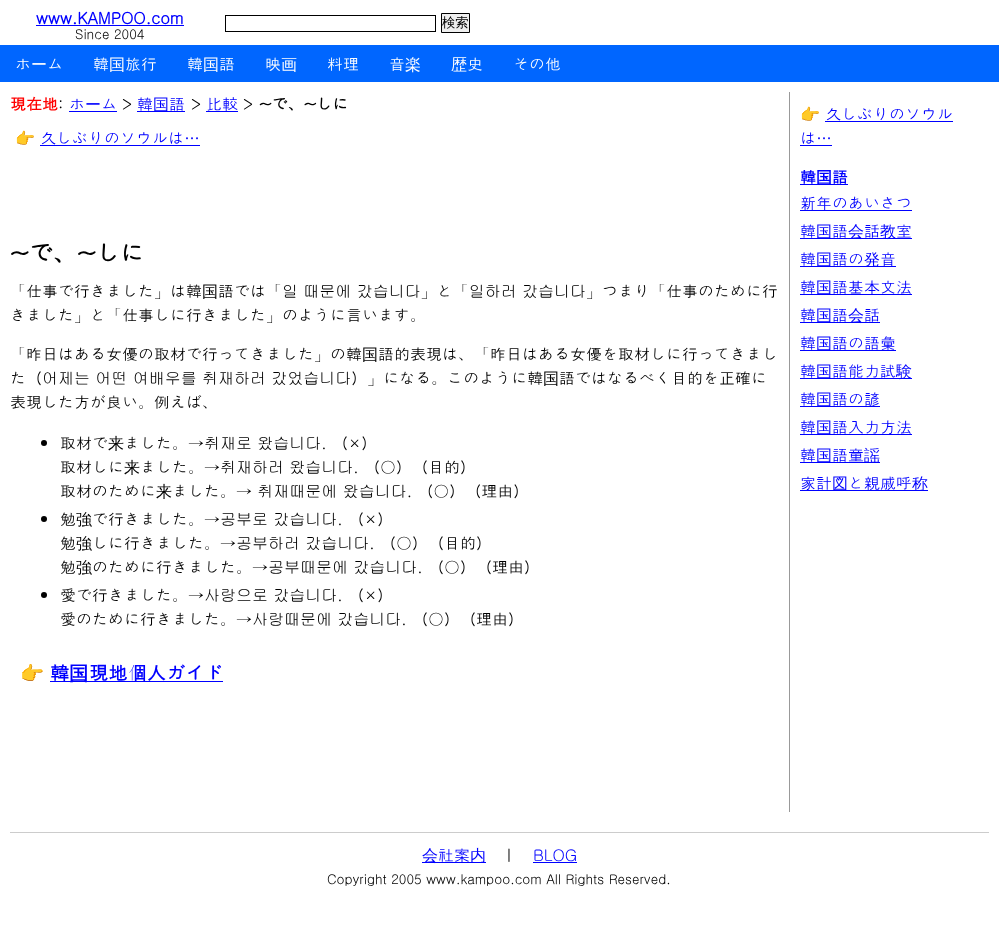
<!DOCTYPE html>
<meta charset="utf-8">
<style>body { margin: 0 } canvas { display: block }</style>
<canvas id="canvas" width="999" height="951"></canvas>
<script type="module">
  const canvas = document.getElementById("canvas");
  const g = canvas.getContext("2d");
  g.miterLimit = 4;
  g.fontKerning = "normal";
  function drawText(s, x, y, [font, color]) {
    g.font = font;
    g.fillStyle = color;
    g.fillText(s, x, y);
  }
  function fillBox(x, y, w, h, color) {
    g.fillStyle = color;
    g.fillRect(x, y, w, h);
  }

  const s1 = ["bold 16px Gulim", "#0000FF"];
  const s2 = ["13.3px Gulim", "#000000"];
  const s3 = ["500 13.3px WenQuanYi Zen Hei", "#000000"];
  const s4 = ["16px Gulim", "#FFFFFF"];
  const s5 = ["500 16px WenQuanYi Zen Hei", "#FFFFFF"];
  const s6 = ["bold 16px Gulim", "#FF0000"];
  const s7 = ["16px Gulim", "#000000"];
  const s8 = ["16px Gulim", "#0000FF"];
  const s9 = ["500 16px WenQuanYi Zen Hei", "#0000FF"];
  const s10 = ["bold 16px Gulim", "#000000"];
  const s11 = ["16px Noto Color Emoji", "#000000"];
  const s12 = ["bold 24px Gulim", "#000000"];
  const s13 = ["500 16px WenQuanYi Zen Hei", "#000000"];
  const s14 = ["bold 19.25px Noto Color Emoji", "#000000"];
  const s15 = ["bold 19.25px Gulim", "#0000FF"];
  const s16 = ["bold 19.25px WenQuanYi Zen Hei", "#0000FF"];
  const s17 = ["bold 16px WenQuanYi Zen Hei", "#0000FF"];

  fillBox(0, 0, 999, 951, "#FFFFFF");
  drawText("www.KAMPOO.com", 36, 24, s1);
  fillBox(36, 25, 148, 1, "#0000FF");
  drawText("Since 2004", 75, 39, s2);
  g.strokeStyle = "#000000";
  g.strokeRect(225.5, 15.5, 210, 16);
  g.fillStyle = "#EFEFEF";
  g.beginPath();
  g.rect(441.5, 13.5, 28, 19);
  g.fill();
  g.stroke();
  drawText("検索", 442, 27, s3);
  fillBox(0, 45, 999, 37, "#0066FF");
  drawText("ホ", 15, 70, s4);
  drawText("ー", 31, 70, s5);
  drawText("ム", 47, 70, s4);
  drawText("韓", 93, 70, s4);
  drawText("国", 109, 70, s5);
  drawText("旅行", 125, 70, s4);
  drawText("韓", 187, 70, s4);
  drawText("国", 203, 70, s5);
  drawText("語", 219, 70, s4);
  drawText("映", 265, 70, s4);
  drawText("画", 281, 70, s5);
  drawText("料理", 327, 70, s4);
  drawText("音", 389, 70, s4);
  drawText("楽", 405, 70, s5);
  drawText("歴", 451, 70, s5);
  drawText("史", 467, 70, s4);
  drawText("その他", 513, 70, s4);
  drawText("現在地", 10, 110, s6);
  drawText(":", 58, 110, s7);
  drawText("ホ", 69, 110, s8);
  fillBox(69, 111, 48, 1, "#0000FF");
  drawText("ー", 85, 110, s9);
  drawText("ム", 101, 110, s8);
  drawText(">", 122, 110, s7);
  drawText("韓", 137, 110, s8);
  fillBox(137, 111, 48, 1, "#0000FF");
  drawText("国", 153, 110, s9);
  drawText("語", 169, 110, s8);
  drawText(">", 191, 110, s7);
  fillBox(206, 111, 32, 1, "#0000FF");
  drawText("比較", 206, 110, s8);
  drawText(">", 243, 110, s7);
  drawText("~で、~しに", 259, 110, s10);
  drawText("👉", 15, 144, s11);
  drawText("久しぶりのソウルは…", 40, 144, s8);
  fillBox(40, 145, 160, 1, "#0000FF");
  drawText("~で、~しに", 10, 262, s12);
  drawText("「仕事で行きました」は韓", 10, 297, s7);
  drawText("国", 202, 297, s13);
  drawText("語では「일 때문에 갔습니다」と「일하러 갔습니다」つまり「仕事のために行", 218, 297, s7);
  drawText("きました」と「仕事しに行きました」のように言います。", 10, 321, s7);
  drawText("「昨日はある女優の取材で行ってきました」の韓", 10, 360, s7);
  drawText("国", 362, 360, s13);
  drawText("語的表現は、「昨日はある女優を取材しに行ってきまし", 378, 360, s7);
  drawText("た（어제는 어떤 여배우를 취재하러 갔었습니다）」になる。このように韓", 10, 384, s7);
  drawText("国", 543, 384, s13);
  drawText("語ではなるべく目的を正確に", 559, 384, s7);
  drawText("表現した方が良い。例えば、", 10, 408, s7);
  g.beginPath();
  g.arc(44, 443, 3, 0, Math.PI * 2);
  g.fill();
  drawText("取材で", 60, 449, s7);
  drawText("来", 108, 449, s13);
  drawText("ました。→취재로 왔습니다. （×）", 124, 449, s7);
  drawText("取材しに", 60, 473, s7);
  drawText("来", 124, 473, s13);
  drawText("ました。→취재하러 왔습니다. （○）（目的）", 140, 473, s7);
  drawText("取材のために", 60, 497, s7);
  drawText("来", 156, 497, s13);
  drawText("ました。→ 취재때문에 왔습니다. （○）（理由）", 172, 497, s7);
  g.beginPath();
  g.arc(44, 519, 3, 0, Math.PI * 2);
  g.fill();
  drawText("勉", 60, 525, s7);
  drawText("強", 76, 525, s13);
  drawText("で行きました。→공부로 갔습니다. （×）", 92, 525, s7);
  drawText("勉", 60, 549, s7);
  drawText("強", 76, 549, s13);
  drawText("しに行きました。→공부하러 갔습니다. （○）（目的）", 92, 549, s7);
  drawText("勉", 60, 573, s7);
  drawText("強", 76, 573, s13);
  drawText("のために行きました。→공부때문에 갔습니다. （○）（理由）", 92, 573, s7);
  g.beginPath();
  g.arc(44, 595, 3, 0, Math.PI * 2);
  g.fill();
  drawText("愛で行きました。→사랑으로 갔습니다. （×）", 60, 601, s7);
  drawText("愛のために行きました。→사랑때문에 갔습니다. （○）（理由）", 60, 625, s7);
  drawText("👉", 20, 680, s14);
  drawText("韓", 50, 680, s15);
  fillBox(50, 681, 173, 1, "#0000FF");
  drawText("国", 69, 680, s16);
  drawText("現地個人ガイド", 89, 680, s15);
  fillBox(789, 92, 1, 720, "#999999");
  drawText("👉", 800, 120, s11);
  drawText("久しぶりのソウル", 825, 120, s8);
  fillBox(825, 121, 128, 1, "#0000FF");
  drawText("は…", 800, 144, s8);
  fillBox(800, 145, 32, 1, "#0000FF");
  drawText("韓", 800, 183, s1);
  fillBox(800, 184, 48, 1, "#0000FF");
  drawText("国", 816, 183, s17);
  drawText("語", 832, 183, s1);
  drawText("新年のあいさつ", 800, 209, s8);
  fillBox(800, 210, 112, 1, "#0000FF");
  drawText("韓", 800, 237, s8);
  fillBox(800, 238, 112, 1, "#0000FF");
  drawText("国", 816, 237, s9);
  drawText("語", 832, 237, s8);
  drawText("会", 848, 237, s9);
  drawText("話", 864, 237, s8);
  drawText("教", 880, 237, s9);
  drawText("室", 896, 237, s8);
  drawText("韓", 800, 265, s8);
  fillBox(800, 266, 96, 1, "#0000FF");
  drawText("国", 816, 265, s9);
  drawText("語の", 832, 265, s8);
  drawText("発", 864, 265, s9);
  drawText("音", 880, 265, s8);
  drawText("韓", 800, 293, s8);
  fillBox(800, 294, 112, 1, "#0000FF");
  drawText("国", 816, 293, s9);
  drawText("語基本文法", 832, 293, s8);
  drawText("韓", 800, 321, s8);
  fillBox(800, 322, 80, 1, "#0000FF");
  drawText("国", 816, 321, s9);
  drawText("語", 832, 321, s8);
  drawText("会", 848, 321, s9);
  drawText("話", 864, 321, s8);
  drawText("韓", 800, 349, s8);
  fillBox(800, 350, 96, 1, "#0000FF");
  drawText("国", 816, 349, s9);
  drawText("語の語彙", 832, 349, s8);
  drawText("韓", 800, 377, s8);
  fillBox(800, 378, 112, 1, "#0000FF");
  drawText("国", 816, 377, s9);
  drawText("語能力試", 832, 377, s8);
  drawText("験", 896, 377, s9);
  drawText("韓", 800, 405, s8);
  fillBox(800, 406, 80, 1, "#0000FF");
  drawText("国", 816, 405, s9);
  drawText("語の諺", 832, 405, s8);
  drawText("韓", 800, 433, s8);
  fillBox(800, 434, 112, 1, "#0000FF");
  drawText("国", 816, 433, s9);
  drawText("語入力方法", 832, 433, s8);
  drawText("韓", 800, 461, s8);
  fillBox(800, 462, 80, 1, "#0000FF");
  drawText("国", 816, 461, s9);
  drawText("語童", 832, 461, s8);
  drawText("謡", 864, 461, s9);
  drawText("家計", 800, 489, s8);
  fillBox(800, 490, 128, 1, "#0000FF");
  drawText("図", 832, 489, s9);
  drawText("と親戚呼", 848, 489, s8);
  drawText("称", 912, 489, s9);
  fillBox(10, 832, 979, 1, "#CCCCCC");
  fillBox(422, 862, 64, 1, "#0000FF");
  drawText("会", 422, 861, s9);
  drawText("社案", 438, 861, s8);
  drawText("内", 470, 861, s9);
  drawText("ㅣ", 501, 861, s7);
  drawText("BLOG", 533, 861, s8);
  fillBox(533, 862, 44, 1, "#0000FF");
  drawText("Copyright 2005 www.kampoo.com All Rights Reserved.", 327, 884, s2);
</script>
